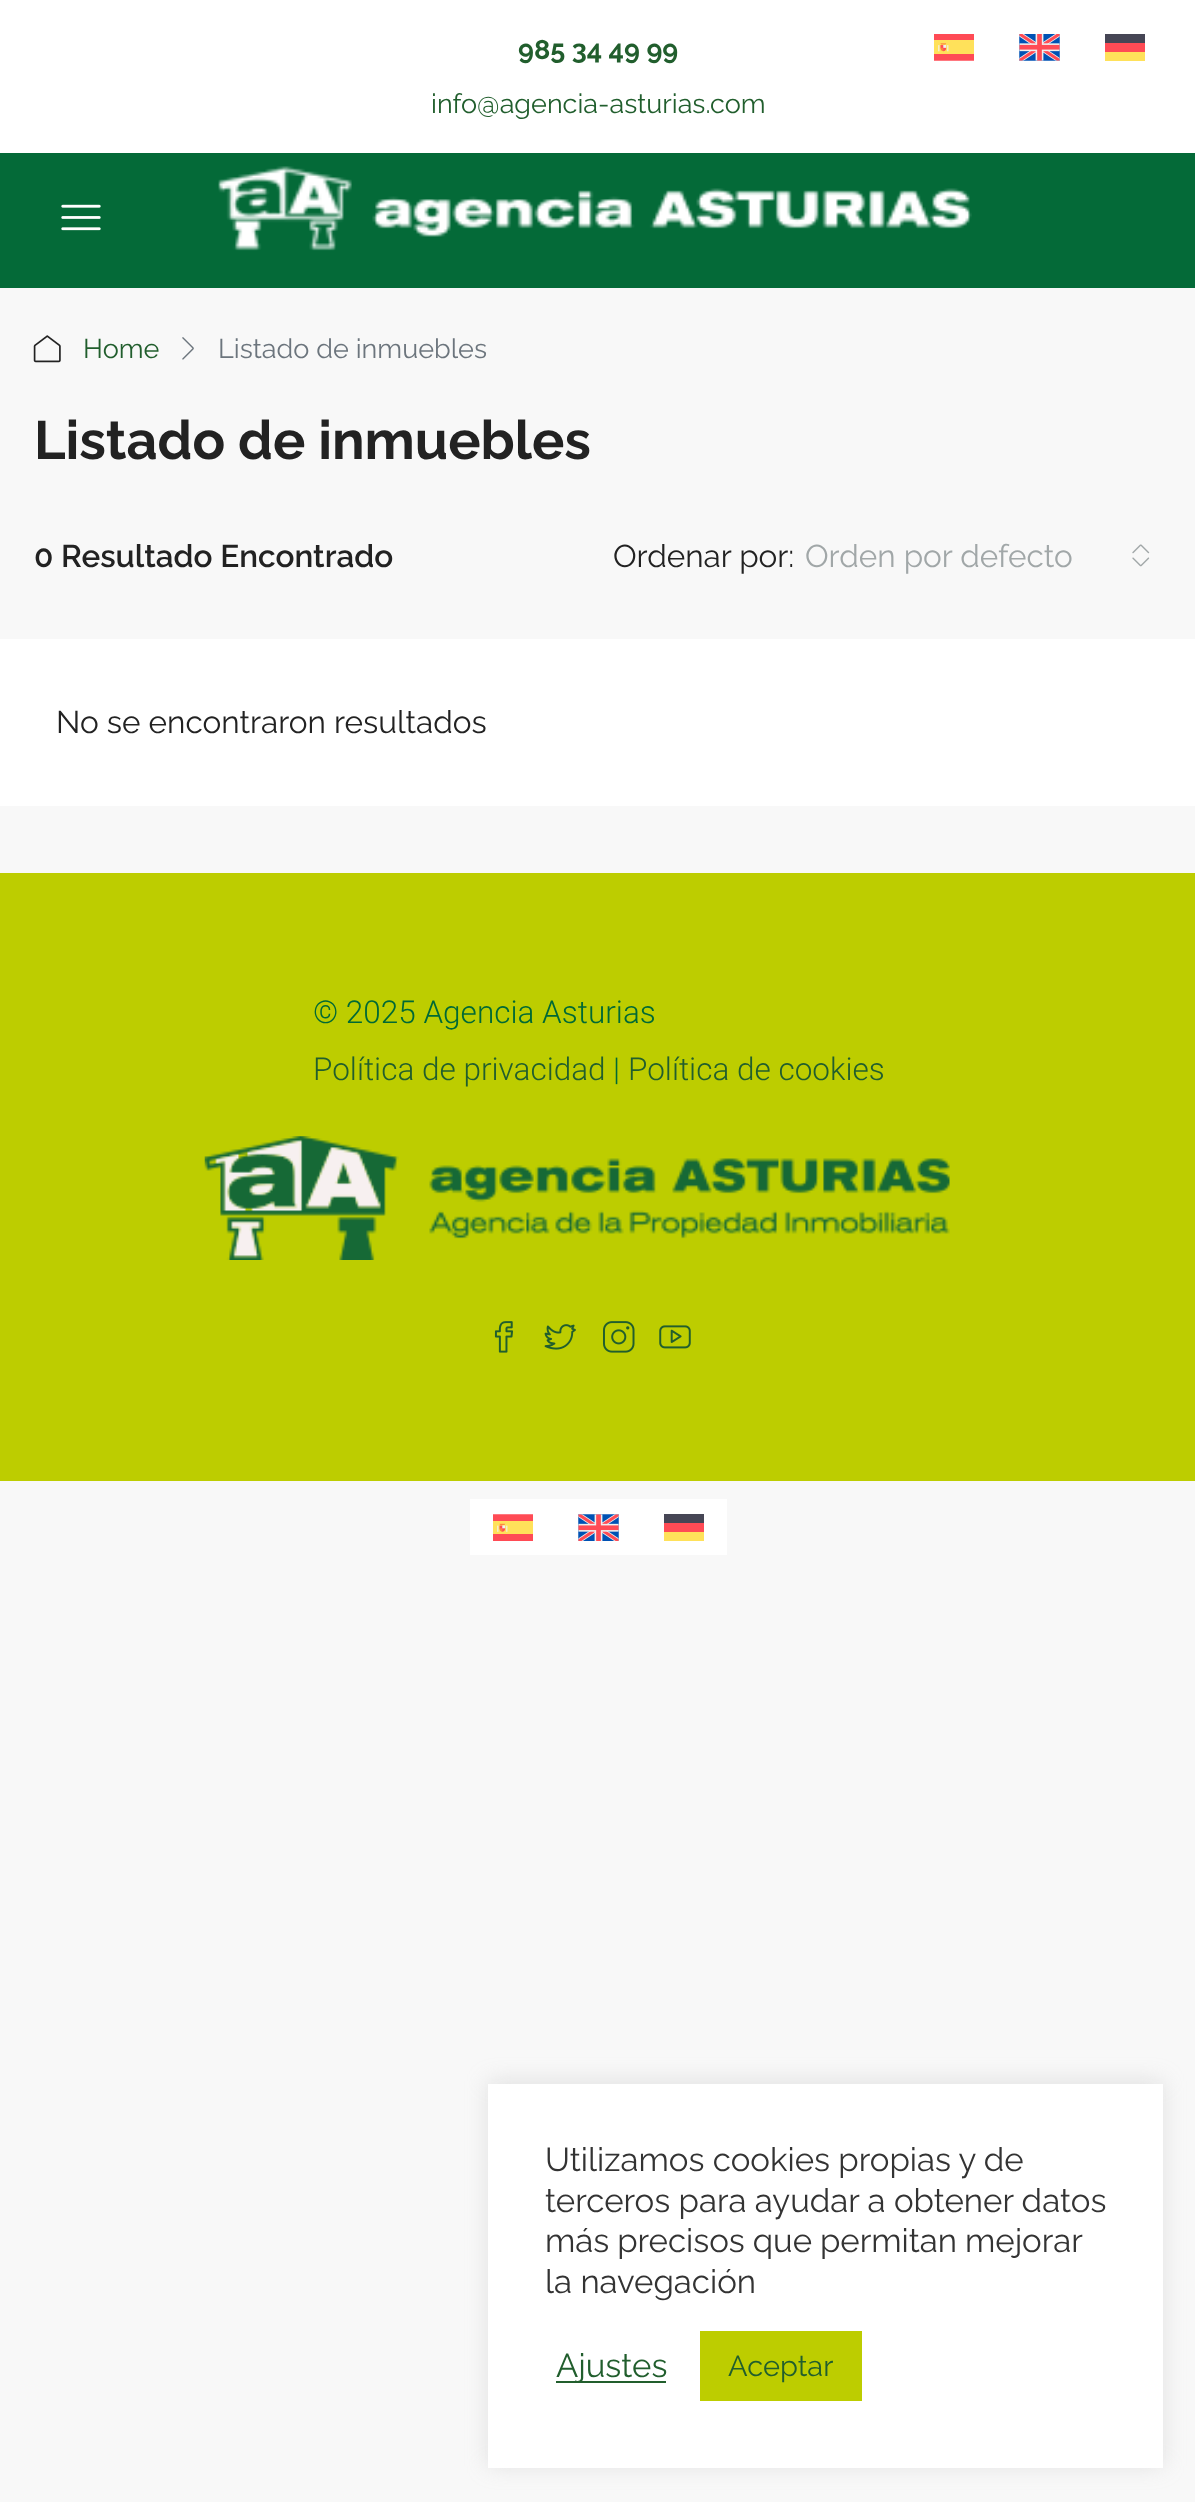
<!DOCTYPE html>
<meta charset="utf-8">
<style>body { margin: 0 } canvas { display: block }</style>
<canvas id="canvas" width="1195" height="2502"></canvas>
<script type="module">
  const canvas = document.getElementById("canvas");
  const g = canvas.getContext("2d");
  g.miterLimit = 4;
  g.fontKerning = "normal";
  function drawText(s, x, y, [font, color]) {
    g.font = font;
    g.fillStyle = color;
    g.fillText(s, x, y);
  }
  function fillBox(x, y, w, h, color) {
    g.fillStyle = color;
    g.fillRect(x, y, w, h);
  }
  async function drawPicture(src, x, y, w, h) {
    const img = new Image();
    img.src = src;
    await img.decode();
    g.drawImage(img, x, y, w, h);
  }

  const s1 = ["bold 27px Raleway", "#215E2D"];
  const s2 = ["27px Raleway", "#215E2D"];
  const s3 = ["27px Raleway", "#6C757D"];
  const s4 = ["bold 54px Raleway", "#222222"];
  const s5 = ["600 31.5px Raleway", "#222222"];
  const s6 = ["31.5px Raleway", "#222222"];
  const s7 = ["31.5px Raleway", "#A1A7A8"];
  const s8 = ["300 31.5px Roboto", "#006935"];
  const s9 = ["300 31.5px Roboto", "#215E2D"];
  const s10 = ["33px Raleway", "#333333"];
  const s11 = ["33px Raleway", "#215E2D"];
  const s12 = ["29px Raleway", "#215E2D"];

  fillBox(0, 0, 1195, 2502, "#F8F8F8");
  fillBox(0, 0, 1195, 153, "#FFFFFF");
  drawText("985 34 49 99", 518, 59, s1);
  drawText("info@agencia-asturias.com", 431, 113, s2);
  await drawPicture("pic1.png", 934, 34, 40, 27);
  await drawPicture("pic2.png", 1019, 34, 41, 27);
  fillBox(1105, 34, 40, 9, "#464655");
  fillBox(1105, 43, 40, 9, "#FF4B55");
  fillBox(1105, 52, 40, 9, "#FFE15A");
  fillBox(0, 153, 1195, 135, "#046A38");
  await drawPicture("pic3.png", 61, 204, 40, 27);
  await drawPicture("pic4.png", 218, 166, 754, 85);
  await drawPicture("pic5.png", 33, 335, 28, 28);
  drawText("Home", 83, 358, s2);
  await drawPicture("pic6.png", 182, 337, 12, 23);
  drawText("Listado de inmuebles", 218, 358, s3);
  drawText("Listado de inmuebles", 34, 459, s4);
  drawText("0 Resultado Encontrado", 34, 567, s5);
  drawText("Ordenar por:", 613, 567, s6);
  drawText("Orden por defecto", 805, 567, s7);
  await drawPicture("pic7.png", 1132, 544, 18, 23);
  fillBox(0, 639, 1195, 167, "#FFFFFF");
  drawText("No se encontraron resultados", 56, 733, s6);
  fillBox(0, 873, 1195, 608, "#BDCD00");
  drawText("© 2025 Agencia Asturias", 313, 1023, s8);
  drawText("Política de privacidad", 313, 1080, s9);
  drawText("|", 613, 1080, s8);
  drawText("Política de cookies", 628, 1080, s9);
  await drawPicture("pic8.png", 204, 1136, 746, 124);
  await drawPicture("pic9.png", 494, 1321, 19, 32);
  await drawPicture("pic10.png", 544, 1324, 32, 26);
  await drawPicture("pic11.png", 603, 1321, 32, 32);
  await drawPicture("pic12.png", 659, 1325, 32, 24);
  fillBox(470, 1499, 257, 56, "#FFFFFF");
  await drawPicture("pic13.png", 493, 1514, 40, 27);
  await drawPicture("pic14.png", 578, 1514, 41, 27);
  fillBox(664, 1514, 40, 9, "#464655");
  fillBox(664, 1523, 40, 9, "#FF4B55");
  fillBox(664, 1532, 40, 9, "#FFE15A");
  g.fillStyle = "rgba(172, 171, 171, 0.3)";
  g.filter = "blur(11px)";
  g.beginPath();
  g.rect(488, 2081, 675, 385);
  g.fill();
  g.filter = "none";
  fillBox(488, 2084, 675, 384, "#FFFFFF");
  drawText("Utilizamos cookies propias y de", 545, 2171, s10);
  drawText("terceros para ayudar a obtener datos", 545, 2212, s10);
  g.wordSpacing = "-0.5px";
  drawText("más precisos que permitan mejorar", 545, 2252, s10);
  g.wordSpacing = "0px";
  drawText("la navegación", 545, 2293, s10);
  fillBox(556, 2381, 110, 2, "#215E2D");
  drawText("Ajustes", 556, 2377, s11);
  fillBox(700, 2331, 162, 70, "#BDCD00");
  drawText("Aceptar", 728, 2376, s12);
</script>
